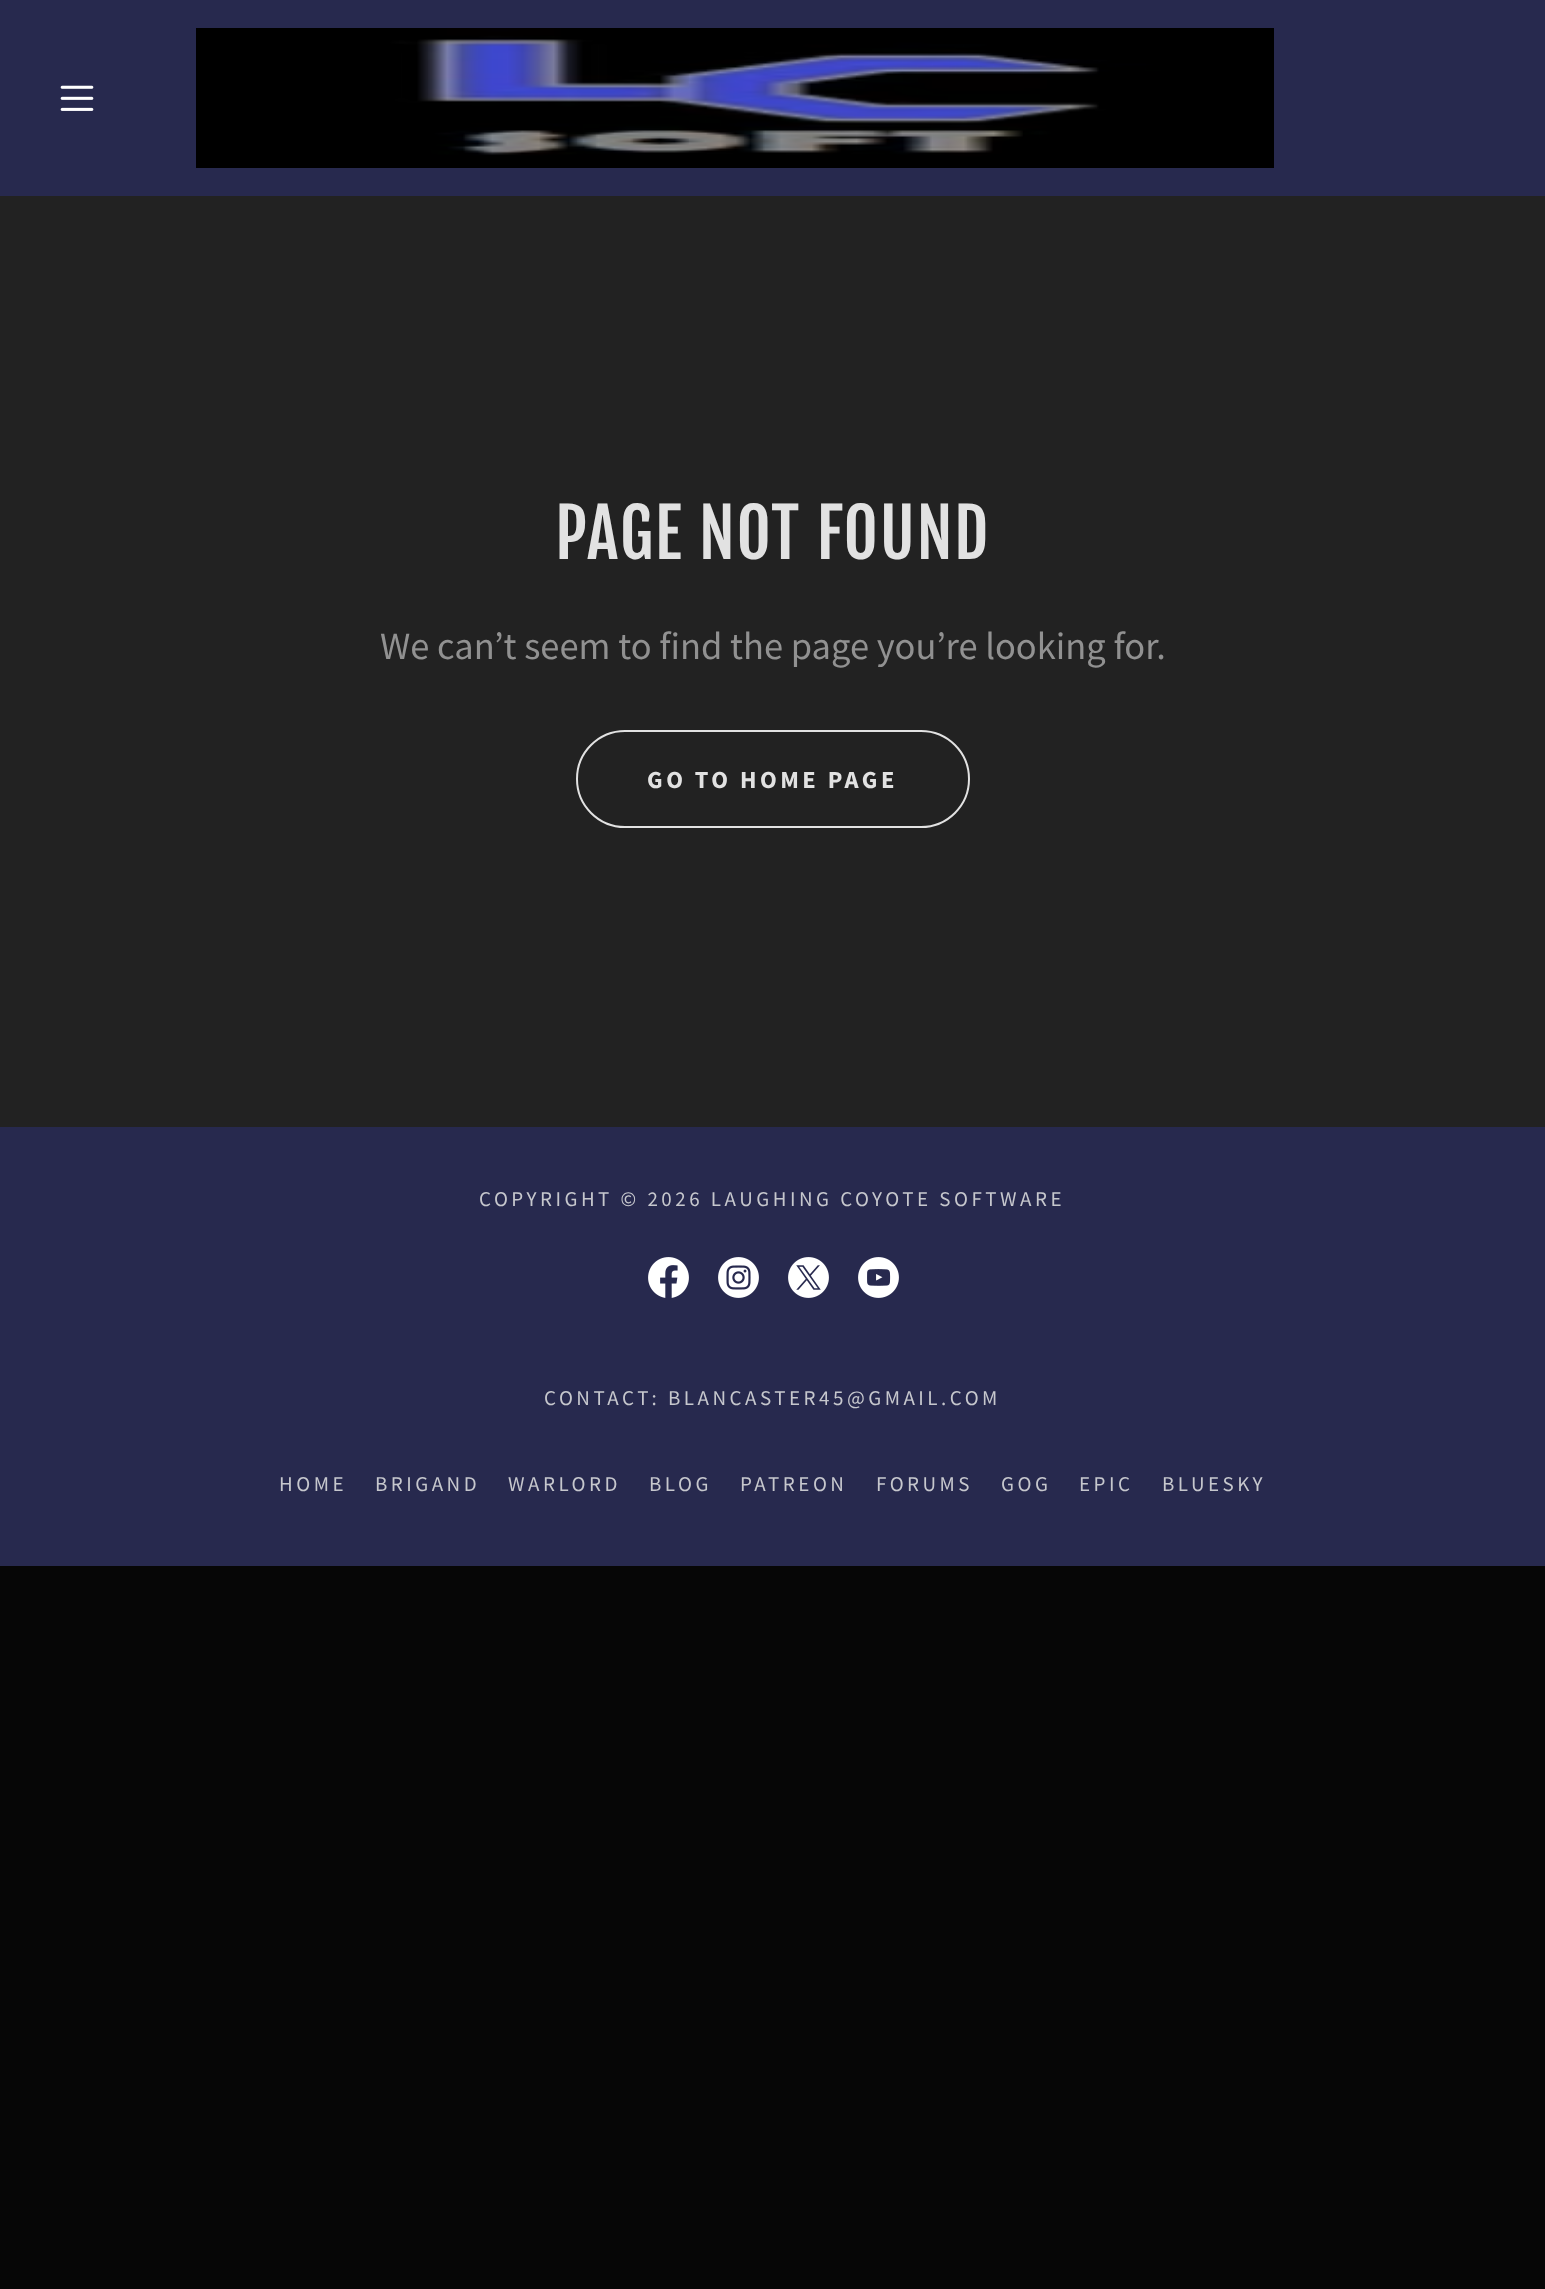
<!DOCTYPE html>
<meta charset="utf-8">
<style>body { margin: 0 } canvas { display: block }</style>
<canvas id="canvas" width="1545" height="2289"></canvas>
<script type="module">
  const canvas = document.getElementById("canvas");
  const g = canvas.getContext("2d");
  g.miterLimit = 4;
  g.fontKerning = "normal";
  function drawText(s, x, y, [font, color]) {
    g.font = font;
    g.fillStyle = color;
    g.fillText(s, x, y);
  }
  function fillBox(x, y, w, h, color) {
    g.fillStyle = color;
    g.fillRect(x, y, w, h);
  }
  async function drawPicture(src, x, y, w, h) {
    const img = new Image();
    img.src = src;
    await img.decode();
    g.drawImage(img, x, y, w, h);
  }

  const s1 = ["66.5px Fjalla One", "#E2E2E2"];
  const s2 = ["38.5px Source Sans Pro", "#919191"];
  const s3 = ["bold 24.5px Source Sans Pro", "#E2E2E2"];
  const s4 = ["21px Source Sans Pro", "#C6C7CD"];

  fillBox(0, 0, 1545, 2289, "#060606");
  fillBox(0, 0, 1545, 196, "#27294E");
  await drawPicture("pic1.png", 60, 85, 34, 26);
  await drawPicture("pic2.png", 196, 28, 1078, 140);
  fillBox(0, 196, 1545, 931, "#222222");
  g.letterSpacing = "1.5px";
  drawText("PAGE NOT FOUND", 555, 559, s1);
  g.letterSpacing = "0px";
  drawText("We can’t seem to find the page you’re looking for.", 380, 659, s2);
  g.beginPath();
  g.roundRect(577, 731, 392, 96, 48);
  g.strokeStyle = "#E2E2E2";
  g.lineWidth = 2;
  g.stroke();
  g.letterSpacing = "3.5px";
  drawText("GO TO HOME PAGE", 647, 788, s3);
  fillBox(0, 1127, 1545, 439, "#27294E");
  drawText("COPYRIGHT © 2026 LAUGHING COYOTE SOFTWARE", 479, 1206, s4);
  await drawPicture("pic3.png", 648, 1257, 41, 41);
  await drawPicture("pic4.png", 718, 1257, 41, 41);
  await drawPicture("pic5.png", 788, 1257, 41, 41);
  await drawPicture("pic6.png", 858, 1257, 41, 41);
  drawText("CONTACT: BLANCASTER45@GMAIL.COM", 544, 1405, s4);
  drawText("HOME", 279, 1491, s4);
  drawText("BRIGAND", 375, 1491, s4);
  drawText("WARLORD", 508, 1491, s4);
  drawText("BLOG", 649, 1491, s4);
  drawText("PATREON", 740, 1491, s4);
  drawText("FORUMS", 876, 1491, s4);
  drawText("GOG", 1001, 1491, s4);
  drawText("EPIC", 1079, 1491, s4);
  drawText("BLUESKY", 1162, 1491, s4);
</script>
